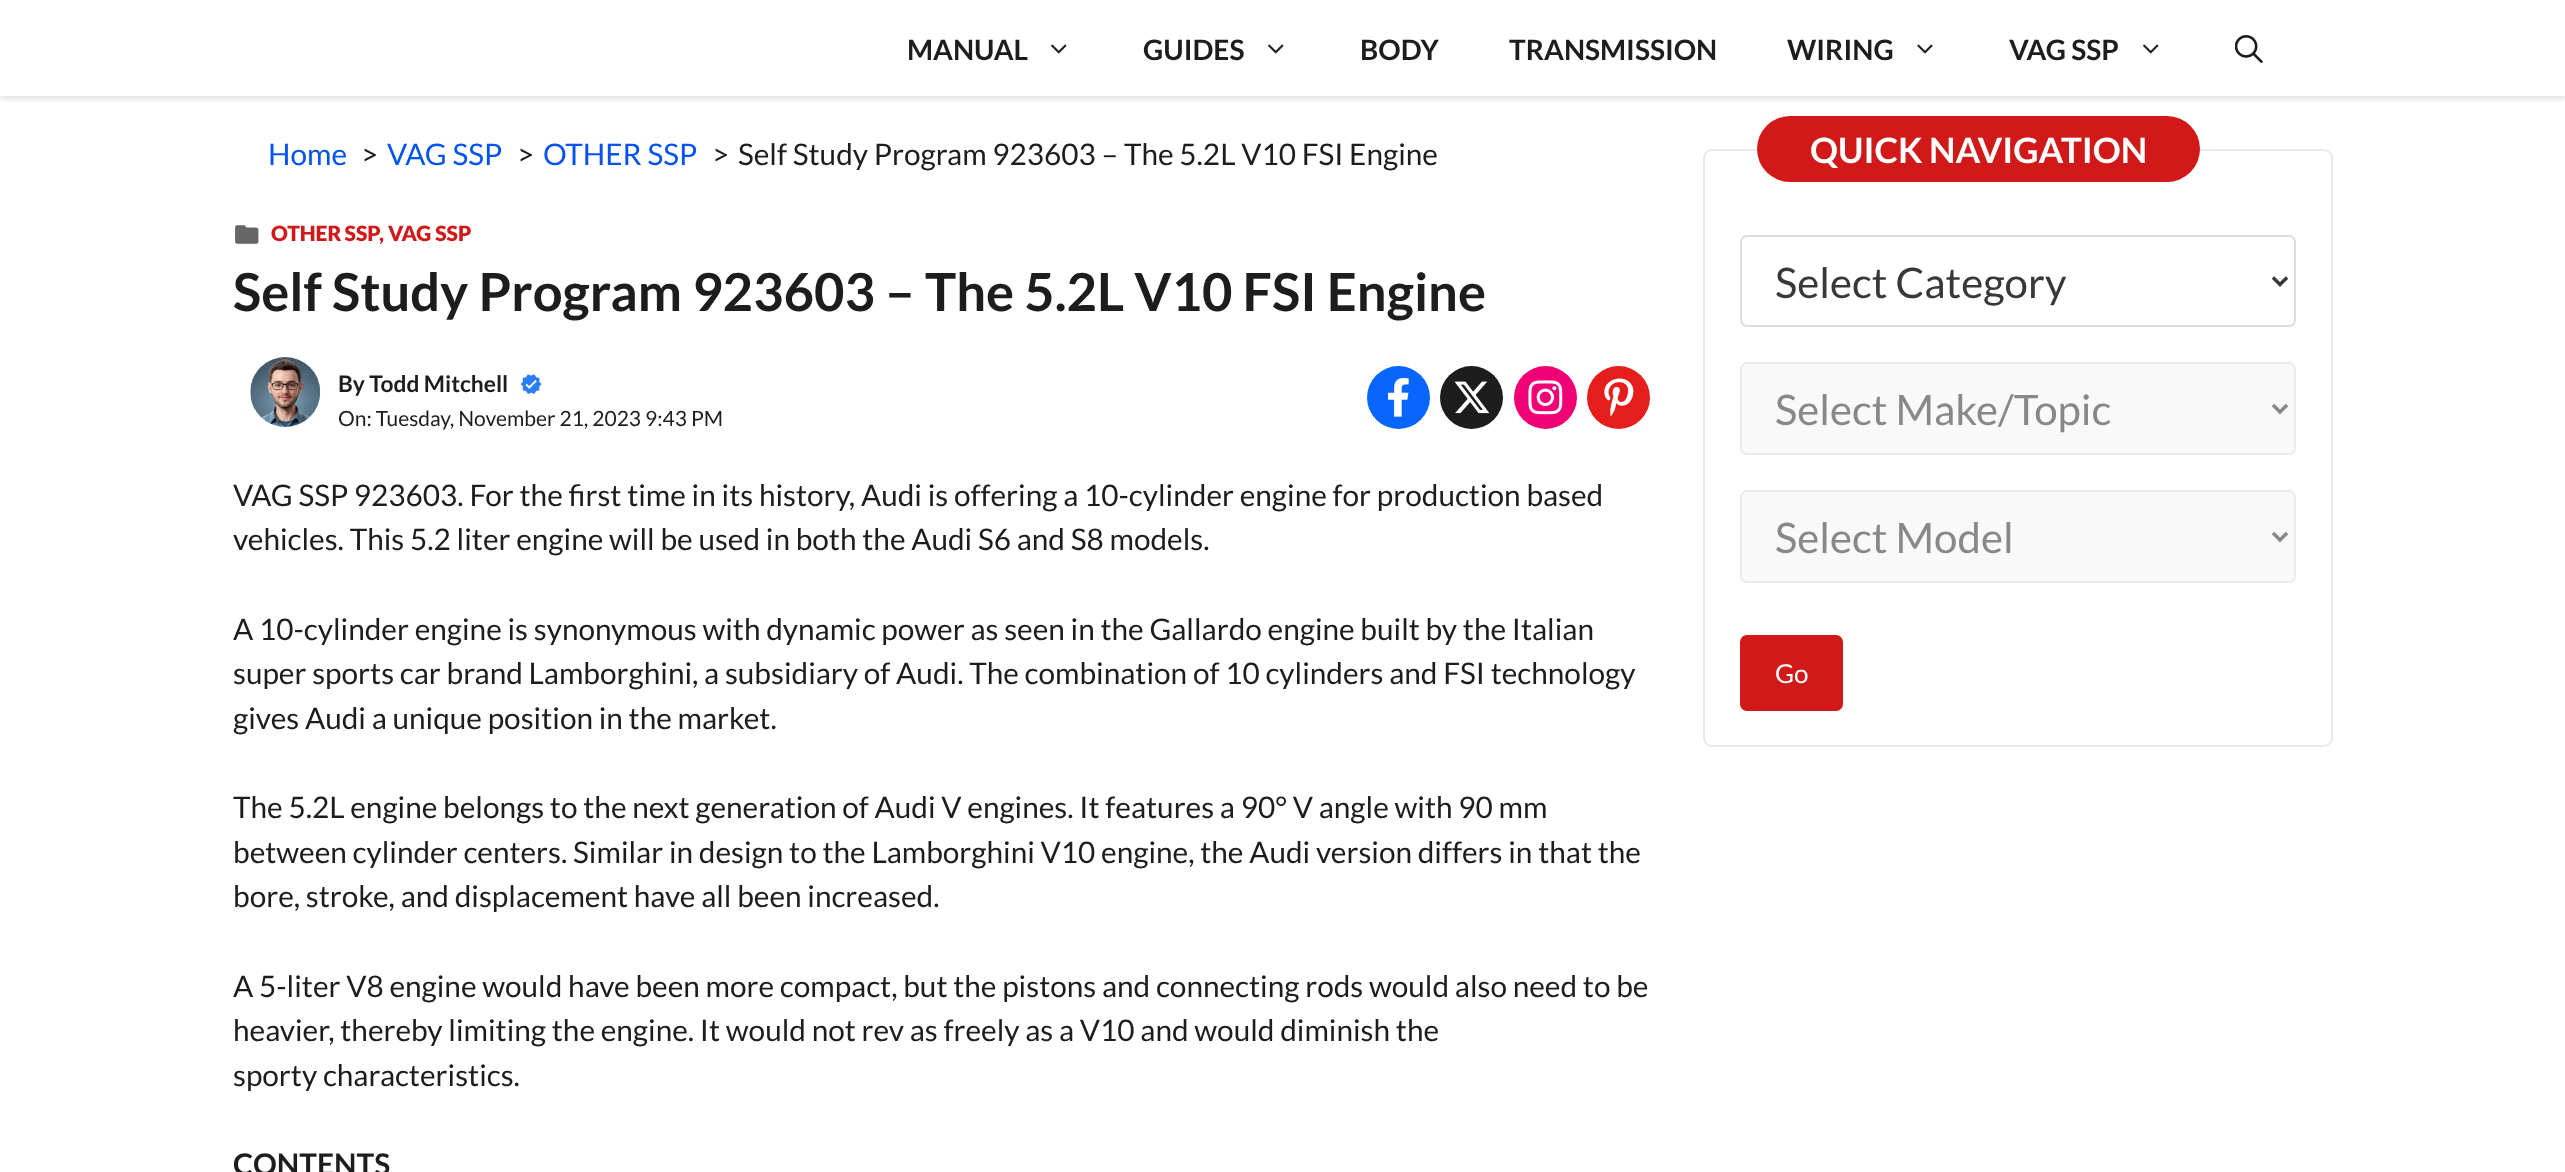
<!DOCTYPE html>
<meta charset="utf-8">
<style>body { margin: 0 } canvas { display: block }</style>
<canvas id="canvas" width="2565" height="1172"></canvas>
<script type="module">
  const canvas = document.getElementById("canvas");
  const g = canvas.getContext("2d");
  g.miterLimit = 4;
  g.fontKerning = "normal";
  function drawText(s, x, y, [font, color]) {
    g.font = font;
    g.fillStyle = color;
    g.fillText(s, x, y);
  }
  function fillBox(x, y, w, h, color) {
    g.fillStyle = color;
    g.fillRect(x, y, w, h);
  }
  function fillRounded(x, y, w, h, r, color) {
    g.fillStyle = color;
    g.beginPath();
    g.roundRect(x, y, w, h, r);
    g.fill();
  }
  async function drawPicture(src, x, y, w, h) {
    const img = new Image();
    img.src = src;
    await img.decode();
    g.drawImage(img, x, y, w, h);
  }

  const s1 = ["bold 28px Lato", "#1D1D1D"];
  const s2 = ["29.75px Lato", "#0553EF"];
  const s3 = ["29.75px Lato", "#1D1D1D"];
  const s4 = ["900 21px Lato", "#D11919"];
  const s5 = ["bold 52.5px Lato", "#1D1D1D"];
  const s6 = ["bold 22.75px Lato", "#1D1D1D"];
  const s7 = ["21px Lato", "#1D1D1D"];
  const s8 = ["bold 29.75px Lato", "#1D1D1D"];
  const s9 = ["bold 35px Lato", "#FFFFFF"];
  const s10 = ["42px Lato", "#383838"];
  const s11 = ["42px Lato", "#888888"];
  const s12 = ["26px Lato", "#FFFFFF"];

  fillBox(0, 0, 2565, 1172, "#FFFFFF");
  g.save();
  g.beginPath();
  g.rect(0, 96, 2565, 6);
  g.clip();
  g.fillStyle = "rgba(0, 0, 0, 0.16)";
  g.filter = "blur(3.5px)";
  g.beginPath();
  g.rect(0, 2, 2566, 96);
  g.fill();
  g.filter = "none";
  g.restore();
  drawText("MANUAL", 907, 60, s1);
  await drawPicture("pic1.png", 1051, 44, 16, 10);
  drawText("GUIDES", 1143, 60, s1);
  await drawPicture("pic1.png", 1268, 44, 16, 10);
  drawText("BODY", 1360, 60, s1);
  drawText("TRANSMISSION", 1509, 60, s1);
  drawText("WIRING", 1787, 60, s1);
  await drawPicture("pic2.png", 1917, 44, 16, 10);
  drawText("VAG SSP", 2009, 60, s1);
  await drawPicture("pic1.png", 2143, 44, 16, 10);
  await drawPicture("pic3.png", 2235, 35, 28, 28);
  drawText("Home", 268, 165, s2);
  drawText(">", 361, 165, s3);
  drawText("VAG SSP", 387, 165, s2);
  drawText(">", 517, 165, s3);
  drawText("OTHER SSP", 543, 165, s2);
  drawText(">", 712, 165, s3);
  drawText("Self Study Program 923603 – The 5.2L V10 FSI Engine", 738, 165, s3);
  await drawPicture("pic4.png", 235, 225, 24, 19);
  g.wordSpacing = "-1px";
  drawText("OTHER SSP", 271, 241, s4);
  g.wordSpacing = "0px";
  drawText(", VAG SSP", 379, 241, s4);
  drawText("Self Study Program 923603 – The 5.2L V10 FSI Engine", 233, 311, s5);
  await drawPicture("pic5.png", 250, 357, 71, 70);
  drawText("By Todd Mitchell", 338, 392, s6);
  await drawPicture("pic6.png", 520, 374, 22, 20);
  drawText("On: Tuesday, November 21, 2023 9:43 PM", 338, 426, s7);
  g.fillStyle = "#0866FF";
  g.beginPath();
  g.arc(1398.5, 397.5, 31.5, 0, Math.PI * 2);
  g.fill();
  await drawPicture("pic7.png", 1387, 378, 22, 39);
  g.fillStyle = "#1D1D1D";
  g.beginPath();
  g.arc(1471.5, 397.5, 31.5, 0, Math.PI * 2);
  g.fill();
  await drawPicture("pic8.png", 1454, 381, 36, 33);
  g.fillStyle = "#F00074";
  g.beginPath();
  g.arc(1545.5, 397.5, 31.5, 0, Math.PI * 2);
  g.fill();
  await drawPicture("pic9.png", 1528, 380, 35, 35);
  g.fillStyle = "#E61D1D";
  g.beginPath();
  g.arc(1618.5, 397.5, 31.5, 0, Math.PI * 2);
  g.fill();
  await drawPicture("pic10.png", 1604, 378, 30, 39);
  drawText("VAG SSP 923603. For the first time in its history, Audi is offering a 10-cylinder engine for production based", 233, 506, s3);
  drawText("vehicles. This 5.2 liter engine will be used in both the Audi S6 and S8 models.", 233, 550, s3);
  drawText("A 10-cylinder engine is synonymous with dynamic power as seen in the Gallardo engine built by the Italian", 233, 640, s3);
  drawText("super sports car brand Lamborghini, a subsidiary of Audi. The combination of 10 cylinders and FSI technology", 233, 684, s3);
  drawText("gives Audi a unique position in the market.", 233, 729, s3);
  drawText("The 5.2L engine belongs to the next generation of Audi V engines. It features a 90° V angle with 90 mm", 233, 818, s3);
  drawText("between cylinder centers. Similar in design to the Lamborghini V10 engine, the Audi version differs in that the", 233, 863, s3);
  drawText("bore, stroke, and displacement have all been increased.", 233, 907, s3);
  drawText("A 5-liter V8 engine would have been more compact, but the pistons and connecting rods would also need to be", 233, 997, s3);
  drawText("heavier, thereby limiting the engine. It would not rev as freely as a V10 and would diminish the", 233, 1041, s3);
  drawText("sporty characteristics.", 233, 1086, s3);
  drawText("CONTENTS", 233, 1175, s8);
  g.beginPath();
  g.roundRect(1704, 150, 628, 596, 8);
  g.strokeStyle = "#E9E9E9";
  g.lineWidth = 2;
  g.stroke();
  fillRounded(1757, 116, 443, 66, 33, "#D11919");
  drawText("QUICK NAVIGATION", 1810, 163, s9);
  g.beginPath();
  g.roundRect(1741, 236, 554, 90, 6);
  g.strokeStyle = "#DDDDDD";
  g.stroke();
  g.beginPath();
  g.moveTo(2273, 277.5);
  g.lineTo(2280, 284.5);
  g.lineTo(2287, 277.5);
  g.strokeStyle = "#383838";
  g.lineWidth = 3.5;
  g.stroke();
  drawText("Select Category", 1775, 298, s10);
  g.fillStyle = "#F9F9F9";
  g.beginPath();
  g.roundRect(1741, 363, 554, 91, 6);
  g.fill();
  g.strokeStyle = "#EBEBEB";
  g.lineWidth = 2;
  g.stroke();
  g.beginPath();
  g.moveTo(2273, 405);
  g.lineTo(2280, 412);
  g.lineTo(2287, 405);
  g.strokeStyle = "#888888";
  g.lineWidth = 3.5;
  g.stroke();
  drawText("Select Make/Topic", 1775, 425, s11);
  g.fillStyle = "#F9F9F9";
  g.beginPath();
  g.roundRect(1741, 491, 554, 91, 6);
  g.fill();
  g.strokeStyle = "#EBEBEB";
  g.lineWidth = 2;
  g.stroke();
  g.beginPath();
  g.moveTo(2273, 533);
  g.lineTo(2280, 540);
  g.lineTo(2287, 533);
  g.strokeStyle = "#888888";
  g.lineWidth = 3.5;
  g.stroke();
  drawText("Select Model", 1775, 553, s11);
  fillRounded(1740, 635, 103, 76, 7, "#D11919");
  drawText("Go", 1775, 683, s12);
</script>
